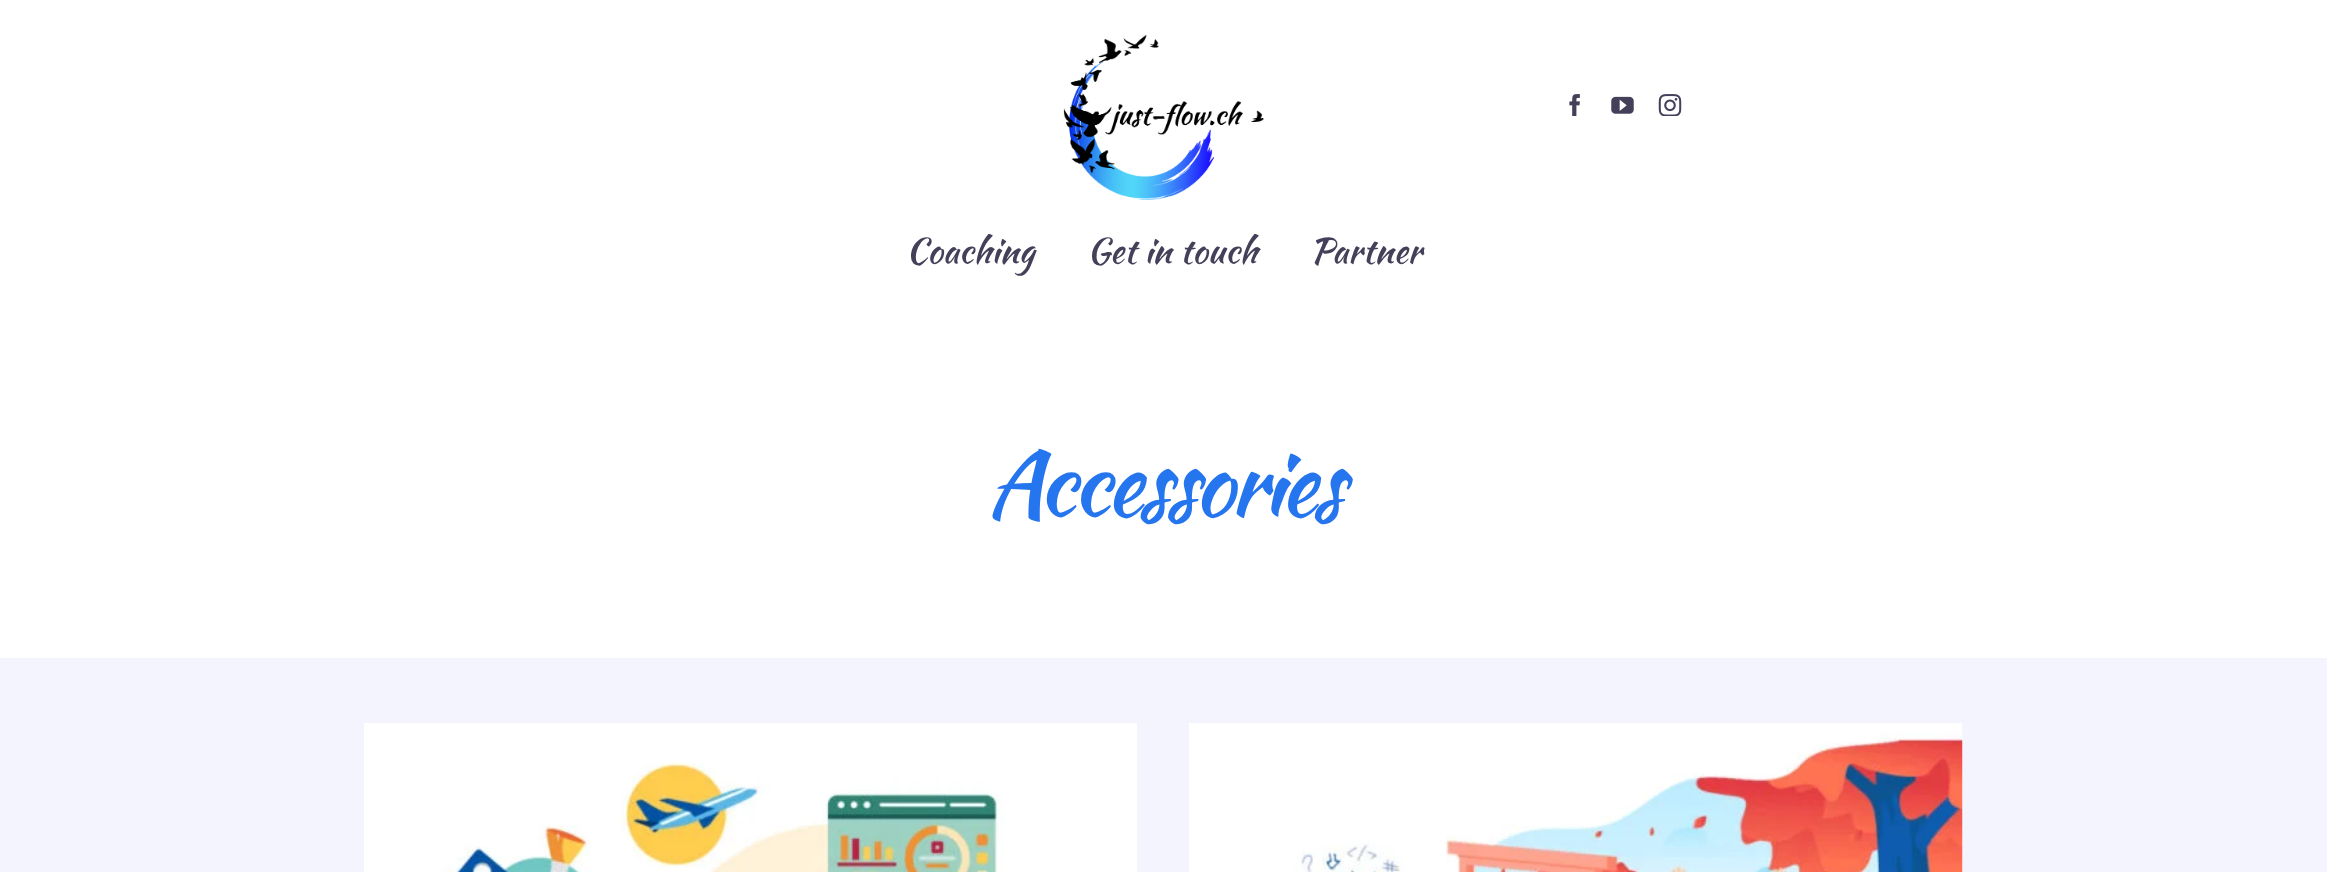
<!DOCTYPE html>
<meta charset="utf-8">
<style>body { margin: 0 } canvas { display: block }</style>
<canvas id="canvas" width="2327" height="872"></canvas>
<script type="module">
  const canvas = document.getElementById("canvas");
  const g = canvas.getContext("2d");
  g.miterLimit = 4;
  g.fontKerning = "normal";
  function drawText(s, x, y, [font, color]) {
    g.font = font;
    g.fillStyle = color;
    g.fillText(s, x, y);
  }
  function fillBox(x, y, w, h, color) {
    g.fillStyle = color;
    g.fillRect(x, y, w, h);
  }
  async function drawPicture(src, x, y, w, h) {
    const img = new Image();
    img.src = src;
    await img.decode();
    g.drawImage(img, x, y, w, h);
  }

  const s1 = ["35px Kaushan Script", "#44405A"];
  const s2 = ["90px Kaushan Script", "#2575EE"];

  fillBox(0, 0, 2327, 872, "#F4F4FF");
  fillBox(0, 0, 2327, 658, "#FFFFFF");
  await drawPicture("pic1.png", 1063, 35, 201, 165);
  await drawPicture("pic2.png", 1569, 94, 11, 22);
  await drawPicture("pic3.png", 1611, 96, 23, 18);
  await drawPicture("pic4.png", 1658, 94, 24, 22);
  drawText("Coaching", 906, 263, s1);
  drawText("Get in touch", 1087, 263, s1);
  drawText("Partner", 1310, 263, s1);
  g.letterSpacing = "-3.6px";
  drawText("Accessories", 987, 515, s2);
  await drawPicture("pic5.png", 364, 723, 773, 149);
  await drawPicture("pic6.png", 1189, 723, 774, 149);
</script>
